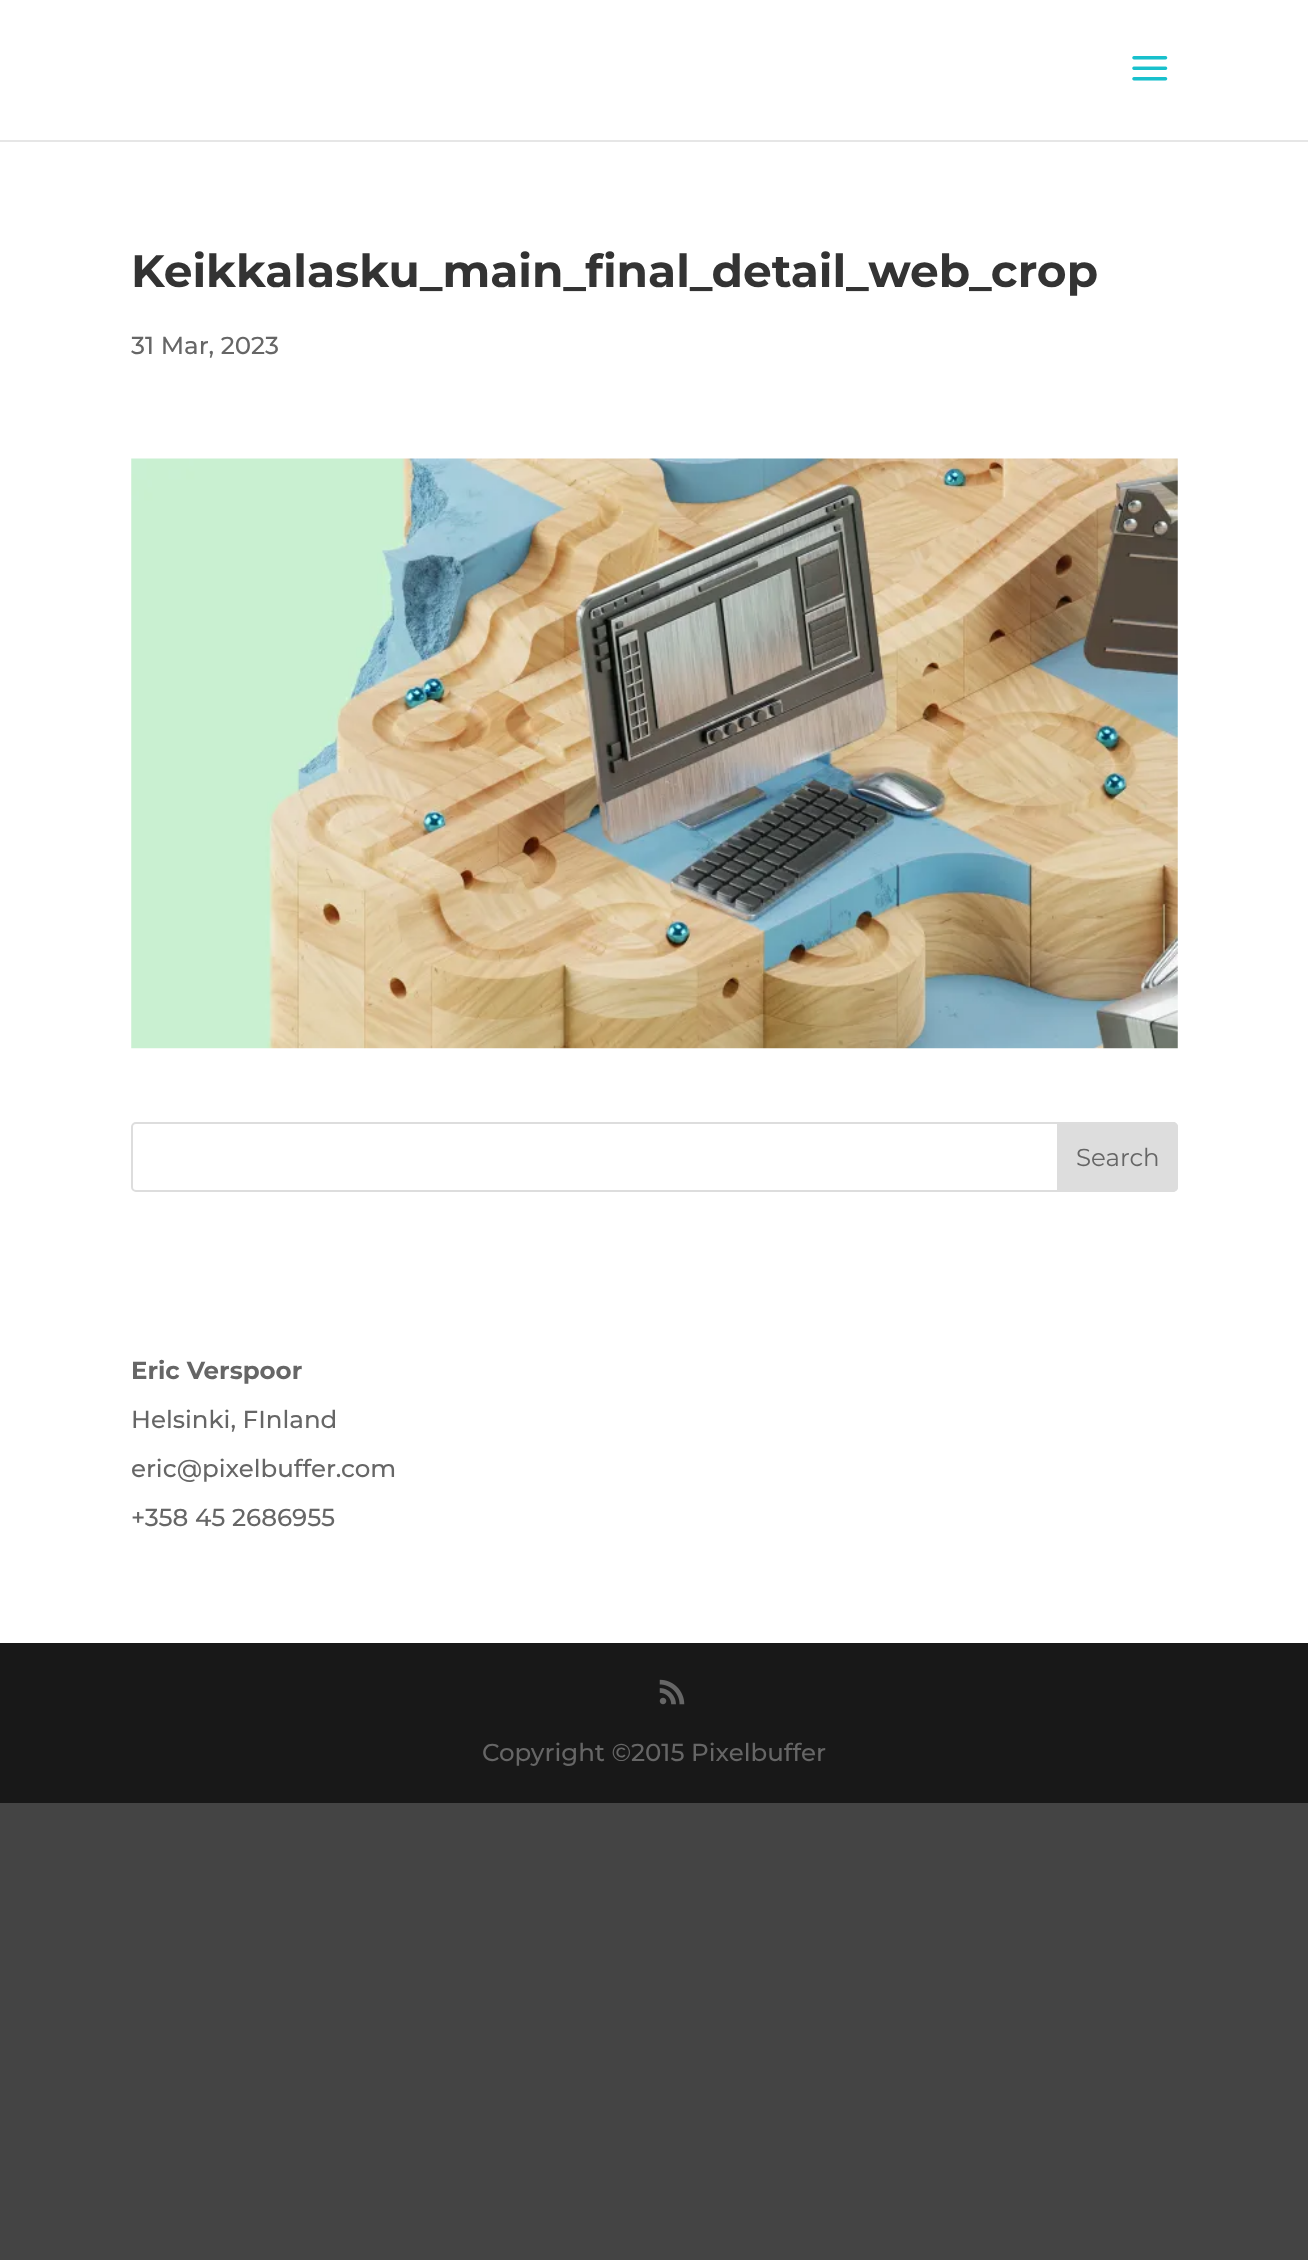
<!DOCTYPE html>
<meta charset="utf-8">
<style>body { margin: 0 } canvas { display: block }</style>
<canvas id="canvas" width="1308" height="2260"></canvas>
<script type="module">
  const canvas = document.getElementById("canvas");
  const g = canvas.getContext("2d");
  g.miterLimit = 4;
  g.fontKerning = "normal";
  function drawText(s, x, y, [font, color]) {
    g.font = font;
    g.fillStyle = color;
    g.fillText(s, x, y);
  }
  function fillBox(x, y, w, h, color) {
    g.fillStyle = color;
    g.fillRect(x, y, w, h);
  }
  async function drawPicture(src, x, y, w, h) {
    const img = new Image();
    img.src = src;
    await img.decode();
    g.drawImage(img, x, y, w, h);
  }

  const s1 = ["bold 45.5px Montserrat", "#333333"];
  const s2 = ["500 24.5px Montserrat", "#666666"];
  const s3 = ["24.5px Montserrat", "#666666"];
  const s4 = ["bold 24.5px Montserrat", "#666666"];

  fillBox(0, 0, 1308, 2260, "#444444");
  fillBox(0, 140, 1308, 2, "#E6E6E6");
  fillBox(0, 0, 1308, 140, "#FFFFFF");
  await drawPicture("pic1.png", 1132, 56, 36, 25);
  fillBox(0, 142, 1308, 1501, "#FFFFFF");
  drawText("Keikkalasku_main_final_detail_web_crop", 131, 287, s1);
  drawText("31 Mar, 2023", 131, 354, s2);
  await drawPicture("pic2.png", 131, 458, 1047, 591);
  g.beginPath();
  g.roundRect(132, 1123, 1045, 68, 4);
  g.strokeStyle = "#DDDDDD";
  g.lineWidth = 2;
  g.stroke();
  g.fillStyle = "#DDDDDD";
  g.beginPath();
  g.roundRect(1058, 1123, 119, 68, [0, 4, 4, 0]);
  g.fill();
  g.stroke();
  drawText("Search", 1076, 1166, s3);
  drawText("Eric Verspoor", 131, 1379, s4);
  drawText("Helsinki, FInland", 131, 1428, s2);
  drawText("eric@pixelbuffer.com", 131, 1477, s2);
  drawText("+358 45 2686955", 131, 1526, s2);
  fillBox(0, 1643, 1308, 160, "#181818");
  await drawPicture("pic3.png", 659, 1679, 26, 26);
  drawText("Copyright ©2015 Pixelbuffer", 482, 1761, s2);
</script>
